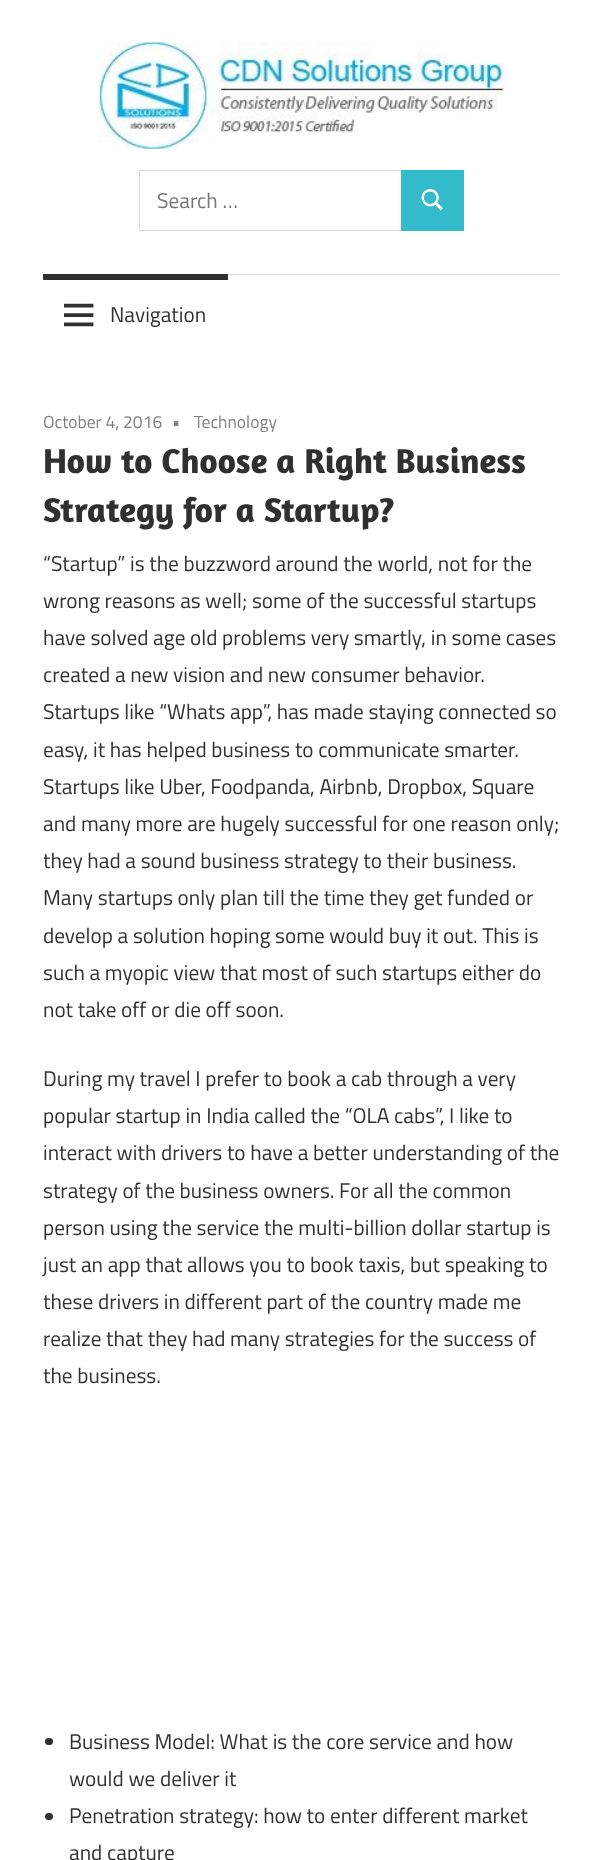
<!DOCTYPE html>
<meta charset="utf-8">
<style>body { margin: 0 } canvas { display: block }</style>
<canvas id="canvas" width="602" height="1860"></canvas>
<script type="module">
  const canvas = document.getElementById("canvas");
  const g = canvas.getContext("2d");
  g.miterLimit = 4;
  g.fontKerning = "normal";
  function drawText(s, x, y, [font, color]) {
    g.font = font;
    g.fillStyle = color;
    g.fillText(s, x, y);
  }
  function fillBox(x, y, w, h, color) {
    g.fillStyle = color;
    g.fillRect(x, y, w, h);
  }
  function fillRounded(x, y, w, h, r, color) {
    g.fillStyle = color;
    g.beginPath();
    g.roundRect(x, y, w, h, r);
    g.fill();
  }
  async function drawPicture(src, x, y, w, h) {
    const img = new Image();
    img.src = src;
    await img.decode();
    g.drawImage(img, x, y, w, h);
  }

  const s1 = ["21.25px Titillium Web", "#757575"];
  const s2 = ["21.25px Titillium Web", "#303030"];
  const s3 = ["17.5px Titillium Web", "#808080"];
  const s4 = ["bold 35px Amaranth", "#303030"];

  fillBox(0, 0, 602, 1860, "#FFFFFF");
  await drawPicture("pic1.png", 97, 42, 408, 107);
  g.strokeStyle = "#D9D9D9";
  g.strokeRect(139.5, 170.5, 263, 60);
  drawText("Search …", 157, 208, s1);
  fillBox(401, 170, 63, 61, "#33BBCC");
  await drawPicture("pic2.png", 421, 189, 22, 22);
  fillBox(228, 274, 332, 1, "#D9D9D9");
  fillBox(43, 274, 185, 6, "#303030");
  await drawPicture("pic3.png", 64, 303, 30, 24);
  drawText("Navigation", 110, 322, s2);
  drawText("October 4, 2016", 43, 428, s3);
  drawText("•", 172, 428, s3);
  drawText("Technology", 194, 428, s3);
  drawText("How to Choose a Right Business", 43, 473, s4);
  drawText("Strategy for a Startup?", 43, 522, s4);
  drawText("“Startup” is the buzzword around the world, not for the", 43, 571, s2);
  drawText("wrong reasons as well; some of the successful startups", 43, 608, s2);
  drawText("have solved age old problems very smartly, in some cases", 43, 645, s2);
  drawText("created a new vision and new consumer behavior.", 43, 682, s2);
  drawText("Startups like “Whats app”, has made staying connected so", 43, 719, s2);
  drawText("easy, it has helped business to communicate smarter.", 43, 757, s2);
  drawText("Startups like Uber, Foodpanda, Airbnb, Dropbox, Square", 43, 794, s2);
  drawText("and many more are hugely successful for one reason only;", 43, 831, s2);
  drawText("they had a sound business strategy to their business.", 43, 868, s2);
  drawText("Many startups only plan till the time they get funded or", 43, 905, s2);
  drawText("develop a solution hoping some would buy it out. This is", 43, 943, s2);
  drawText("such a myopic view that most of such startups either do", 43, 980, s2);
  drawText("not take off or die off soon.", 43, 1017, s2);
  drawText("During my travel I prefer to book a cab through a very", 43, 1086, s2);
  drawText("popular startup in India called the “OLA cabs”, I like to", 43, 1123, s2);
  drawText("interact with drivers to have a better understanding of the", 43, 1160, s2);
  drawText("strategy of the business owners. For all the common", 43, 1198, s2);
  drawText("person using the service the multi-billion dollar startup is", 43, 1235, s2);
  drawText("just an app that allows you to book taxis, but speaking to", 43, 1272, s2);
  drawText("these drivers in different part of the country made me", 43, 1309, s2);
  drawText("realize that they had many strategies for the success of", 43, 1346, s2);
  drawText("the business.", 43, 1383, s2);
  fillRounded(45, 1738, 8, 7, 3.5, "#303030");
  drawText("Business Model: What is the core service and how", 69, 1749, s2);
  drawText("would we deliver it", 69, 1786, s2);
  fillRounded(45, 1813, 8, 7, 3.5, "#303030");
  drawText("Penetration strategy: how to enter different market", 69, 1823, s2);
  drawText("and capture", 69, 1860, s2);
</script>
